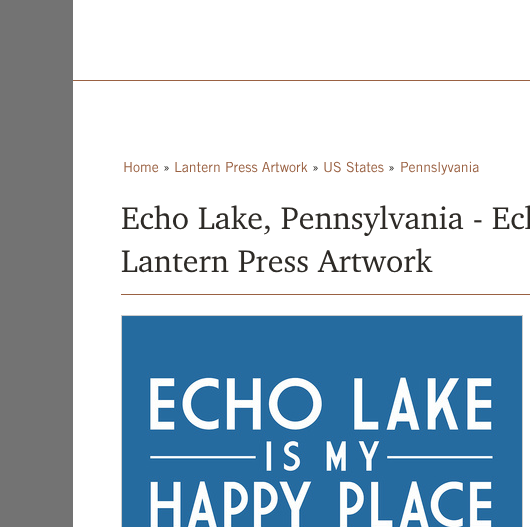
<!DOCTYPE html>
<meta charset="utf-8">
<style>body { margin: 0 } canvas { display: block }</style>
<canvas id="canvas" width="530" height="527"></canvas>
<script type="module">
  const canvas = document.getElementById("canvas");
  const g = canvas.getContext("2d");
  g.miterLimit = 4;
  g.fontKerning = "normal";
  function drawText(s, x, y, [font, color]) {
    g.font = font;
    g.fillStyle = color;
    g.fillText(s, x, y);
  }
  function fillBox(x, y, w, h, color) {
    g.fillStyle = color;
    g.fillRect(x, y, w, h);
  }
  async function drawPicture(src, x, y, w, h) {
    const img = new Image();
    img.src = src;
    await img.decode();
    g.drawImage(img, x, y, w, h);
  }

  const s1 = ["14px Trade Gothic", "#9A6142"];
  const s2 = ["14px Trade Gothic", "#2D2A26"];
  const s3 = ["32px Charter", "#2D2A26"];

  fillBox(0, 0, 530, 527, "#737373");
  fillBox(73, 0, 457, 527, "#FFFFFF");
  fillBox(73, 80, 457, 1, "#9A6142");
  drawText("Home", 123, 172, s1);
  drawText("»", 163, 172, s2);
  drawText("Lantern Press Artwork", 174, 172, s1);
  drawText("»", 312, 172, s2);
  drawText("US States", 323, 172, s1);
  drawText("»", 388, 172, s2);
  drawText("Pennslyvania", 400, 172, s1);
  fillBox(121, 294, 409, 1, "#9A6142");
  drawText("Echo Lake, Pennsylvania - Ech", 121, 229, s3);
  drawText("Lantern Press Artwork", 121, 272, s3);
  g.strokeStyle = "#CCCCCC";
  g.strokeRect(121.5, 315.5, 401, 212);
  await drawPicture("pic1.png", 122, 316, 400, 211);
</script>
